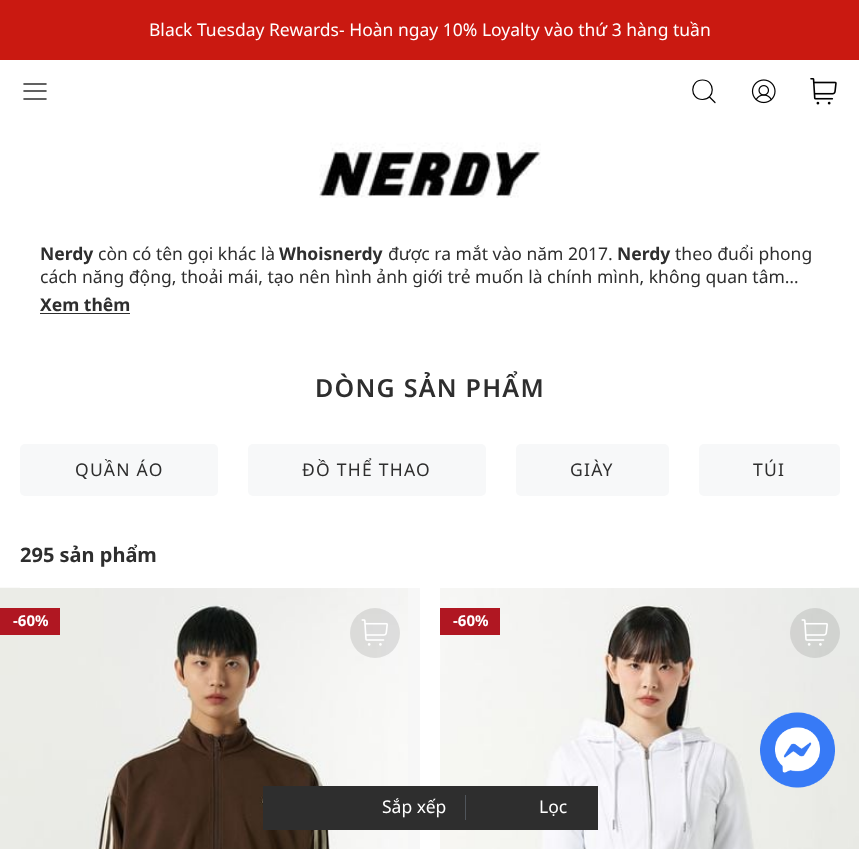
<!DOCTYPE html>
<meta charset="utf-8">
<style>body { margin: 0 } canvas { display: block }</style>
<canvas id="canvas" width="859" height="849"></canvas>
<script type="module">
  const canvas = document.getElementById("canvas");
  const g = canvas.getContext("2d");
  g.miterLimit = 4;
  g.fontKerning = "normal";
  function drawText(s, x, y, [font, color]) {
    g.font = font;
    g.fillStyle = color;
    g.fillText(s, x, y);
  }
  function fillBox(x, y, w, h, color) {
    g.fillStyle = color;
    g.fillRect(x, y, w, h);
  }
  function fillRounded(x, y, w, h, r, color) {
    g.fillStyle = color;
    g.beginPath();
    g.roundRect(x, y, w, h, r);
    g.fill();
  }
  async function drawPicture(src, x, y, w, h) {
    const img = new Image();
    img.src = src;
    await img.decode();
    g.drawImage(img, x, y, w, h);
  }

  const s1 = ["17.5px Noto Sans", "#FFFFFF"];
  const s2 = ["bold 17.5px Noto Sans", "#2E2E2E"];
  const s3 = ["17.5px Noto Sans", "#2E2E2E"];
  const s4 = ["600 25px Noto Sans", "#2E2E2E"];
  const s5 = ["bold 20px Noto Sans", "#2E2E2E"];
  const s6 = ["bold 15px Noto Sans", "#FFFFFF"];

  fillBox(0, 0, 859, 849, "#FFFFFF");
  fillBox(0, 0, 859, 60, "#CA1911");
  drawText("Black Tuesday Rewards- Hoàn ngay 10% Loyalty vào thứ 3 hàng tuần", 149, 36, s1);
  g.beginPath();
  g.moveTo(24, 91);
  g.lineTo(46, 91);
  g.moveTo(24, 84);
  g.lineTo(46, 84);
  g.moveTo(24, 99);
  g.lineTo(46, 99);
  g.strokeStyle = "#2E2E2E";
  g.lineWidth = 1.6;
  g.lineCap = "round";
  g.lineJoin = "round";
  g.stroke();
  g.beginPath();
  g.moveTo(702.5, 99.5);
  g.bezierCurveTo(715.5, 99.5, 715.5, 80, 702.5, 80);
  g.bezierCurveTo(689.5, 80, 689.5, 99.5, 702.5, 99.5);
  g.closePath();
  g.moveTo(709.5, 97);
  g.lineTo(715, 102.5);
  g.strokeStyle = "#000000";
  g.lineWidth = 1.2;
  g.stroke();
  await drawPicture("pic1.png", 751, 79, 25, 25);
  await drawPicture("pic2.png", 810, 78, 27, 27);
  await drawPicture("pic3.png", 319, 142, 222, 56);
  drawText("Nerdy", 40, 260, s2);
  drawText("còn có tên gọi khác là", 98, 260, s3);
  drawText("Whoisnerdy", 279, 260, s2);
  drawText("được ra mắt vào năm 2017.", 388, 260, s3);
  drawText("Nerdy", 617, 260, s2);
  drawText("theo đuổi phong", 675, 260, s3);
  drawText("cách năng động, thoải mái, tạo nên hình ảnh giới trẻ muốn là chính mình, không quan tâm…", 40, 283, s3);
  drawText("Xem thêm", 40, 311, s2);
  fillBox(40, 313, 90, 1, "#2E2E2E");
  g.letterSpacing = "1.25px";
  drawText("DÒNG SẢN PHẨM", 315, 397, s4);
  fillRounded(20, 444, 198, 52, 5, "#F7F8F9");
  drawText("QUẦN ÁO", 75, 476, s3);
  fillRounded(248, 444, 238, 52, 5, "#F7F8F9");
  drawText("ĐỒ THỂ THAO", 302, 476, s3);
  fillRounded(516, 444, 153, 52, 5, "#F7F8F9");
  drawText("GIÀY", 570, 476, s3);
  fillRounded(699, 444, 141, 52, 5, "#F7F8F9");
  drawText("TÚI", 753, 476, s3);
  await drawPicture("pic4.png", 0, 587, 408, 262);
  await drawPicture("pic6.png", 440, 587, 419, 262);
  fillBox(20, 587, 820, 1, "#FFFFFF");
  g.letterSpacing = "0px";
  drawText("295 sản phẩm", 20, 562, s5);
  fillBox(408, 588, 12, 261, "#F7F7F7");
  fillBox(0, 608, 60, 27, "#B01722");
  drawText("-60%", 13, 626, s6);
  g.fillStyle = "rgba(0, 0, 0, 0.1)";
  g.beginPath();
  g.arc(375, 633, 25, 0, Math.PI * 2);
  g.fill();
  await drawPicture("pic5.png", 361, 619, 27, 27);
  fillBox(440, 608, 60, 27, "#B01722");
  drawText("-60%", 453, 626, s6);
  g.fillStyle = "rgba(0, 0, 0, 0.1)";
  g.beginPath();
  g.arc(815, 633, 25, 0, Math.PI * 2);
  g.fill();
  await drawPicture("pic7.png", 801, 619, 27, 27);
  fillBox(263, 786, 335, 44, "#2E2E2E");
  drawText("Sắp xếp", 382, 813, s1);
  fillBox(465, 795, 1, 25, "#50555B");
  drawText("Lọc", 539, 813, s1);
  await drawPicture("pic8.png", 760, 712, 75, 76);
</script>
